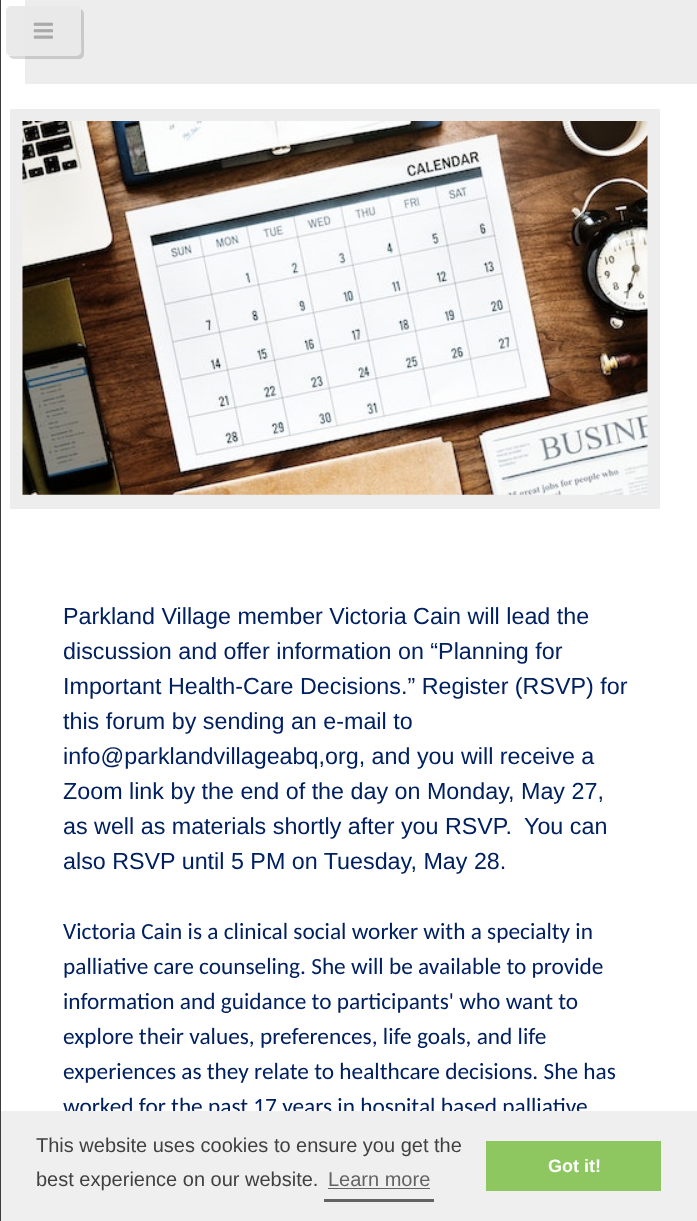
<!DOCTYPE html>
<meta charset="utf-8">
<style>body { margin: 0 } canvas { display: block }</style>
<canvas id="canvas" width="697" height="1221"></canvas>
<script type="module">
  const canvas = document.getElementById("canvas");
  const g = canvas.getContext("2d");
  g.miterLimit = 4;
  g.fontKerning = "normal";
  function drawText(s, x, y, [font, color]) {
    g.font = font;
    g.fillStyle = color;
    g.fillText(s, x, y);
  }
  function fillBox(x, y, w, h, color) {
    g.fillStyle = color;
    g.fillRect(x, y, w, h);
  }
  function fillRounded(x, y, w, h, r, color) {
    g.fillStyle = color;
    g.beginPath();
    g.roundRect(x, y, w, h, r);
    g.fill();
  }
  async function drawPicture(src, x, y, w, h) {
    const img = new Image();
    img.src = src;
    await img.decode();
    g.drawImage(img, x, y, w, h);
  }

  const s1 = ["23.3px Liberation Sans", "#002060"];
  const s2 = ["23.3px Carlito", "#002060"];
  const s3 = ["20px Liberation Sans", "#404040"];
  const s4 = ["20px Liberation Sans", "#636363"];
  const s5 = ["bold 18px Liberation Sans", "#FFFFFF"];

  fillBox(0, 0, 697, 1221, "#FFFFFF");
  fillBox(0, 0, 1, 1221, "#3C3C3C");
  fillBox(25, 0, 672, 84, "#EDEDED");
  g.fillStyle = "rgba(0, 0, 0, 0.15)";
  g.beginPath();
  g.moveTo(9, 56);
  g.bezierCurveTo(10, 58, 12, 59, 14, 59);
  g.lineTo(79, 59);
  g.bezierCurveTo(82, 59, 84, 57, 84, 54);
  g.lineTo(84, 14);
  g.bezierCurveTo(84, 12, 83, 10, 81, 9);
  g.lineTo(81, 38);
  g.bezierCurveTo(81, 57, 84, 56, 65, 56);
  g.closePath();
  g.fill();
  fillRounded(6, 6, 75, 50, 5, "rgba(232, 232, 232, 0.9)");
  await drawPicture("pic1.png", 33, 22, 20, 17);
  fillBox(10, 109, 650, 400, "#EDEDED");
  await drawPicture("pic2.png", 22, 121, 626, 374);
  drawText("Parkland Village member Victoria Cain will lead the", 63, 624, s1);
  drawText("discussion and offer information on “Planning for", 63, 659, s1);
  drawText("Important Health-Care Decisions.” Register (RSVP) for", 63, 694, s1);
  drawText("this forum by sending an e-mail to", 63, 729, s1);
  drawText("info@parklandvillageabq,org, and you will receive a", 63, 764, s1);
  drawText("Zoom link by the end of the day on Monday, May 27,", 63, 799, s1);
  drawText("as well as materials shortly after you RSVP.", 63, 834, s1);
  drawText("You can", 524, 834, s1);
  drawText("also RSVP until 5 PM on Tuesday, May 28.", 63, 869, s1);
  drawText("Victoria Cain is a clinical social worker with a specialty in", 63, 939, s2);
  drawText("palliative care counseling. She will be available to provide", 63, 974, s2);
  drawText("information and guidance to participants' who want to", 63, 1009, s2);
  drawText("explore their values, preferences, life goals, and life", 63, 1044, s2);
  drawText("experiences as they relate to healthcare decisions. She has", 63, 1079, s2);
  drawText("worked for the past 17 years in hospital based palliative", 63, 1114, s2);
  fillBox(1, 1111, 696, 110, "#EFEFEF");
  drawText("This website uses cookies to ensure you get the", 36, 1152, s3);
  drawText("best experience on our website.", 36, 1186, s3);
  fillBox(324, 1199, 110, 3, "#636363");
  drawText("Learn more", 328, 1186, s4);
  fillBox(328, 1188, 102, 1, "#636363");
  fillBox(486, 1141, 175, 50, "#8EC760");
  drawText("Got it!", 548, 1172, s5);
</script>
